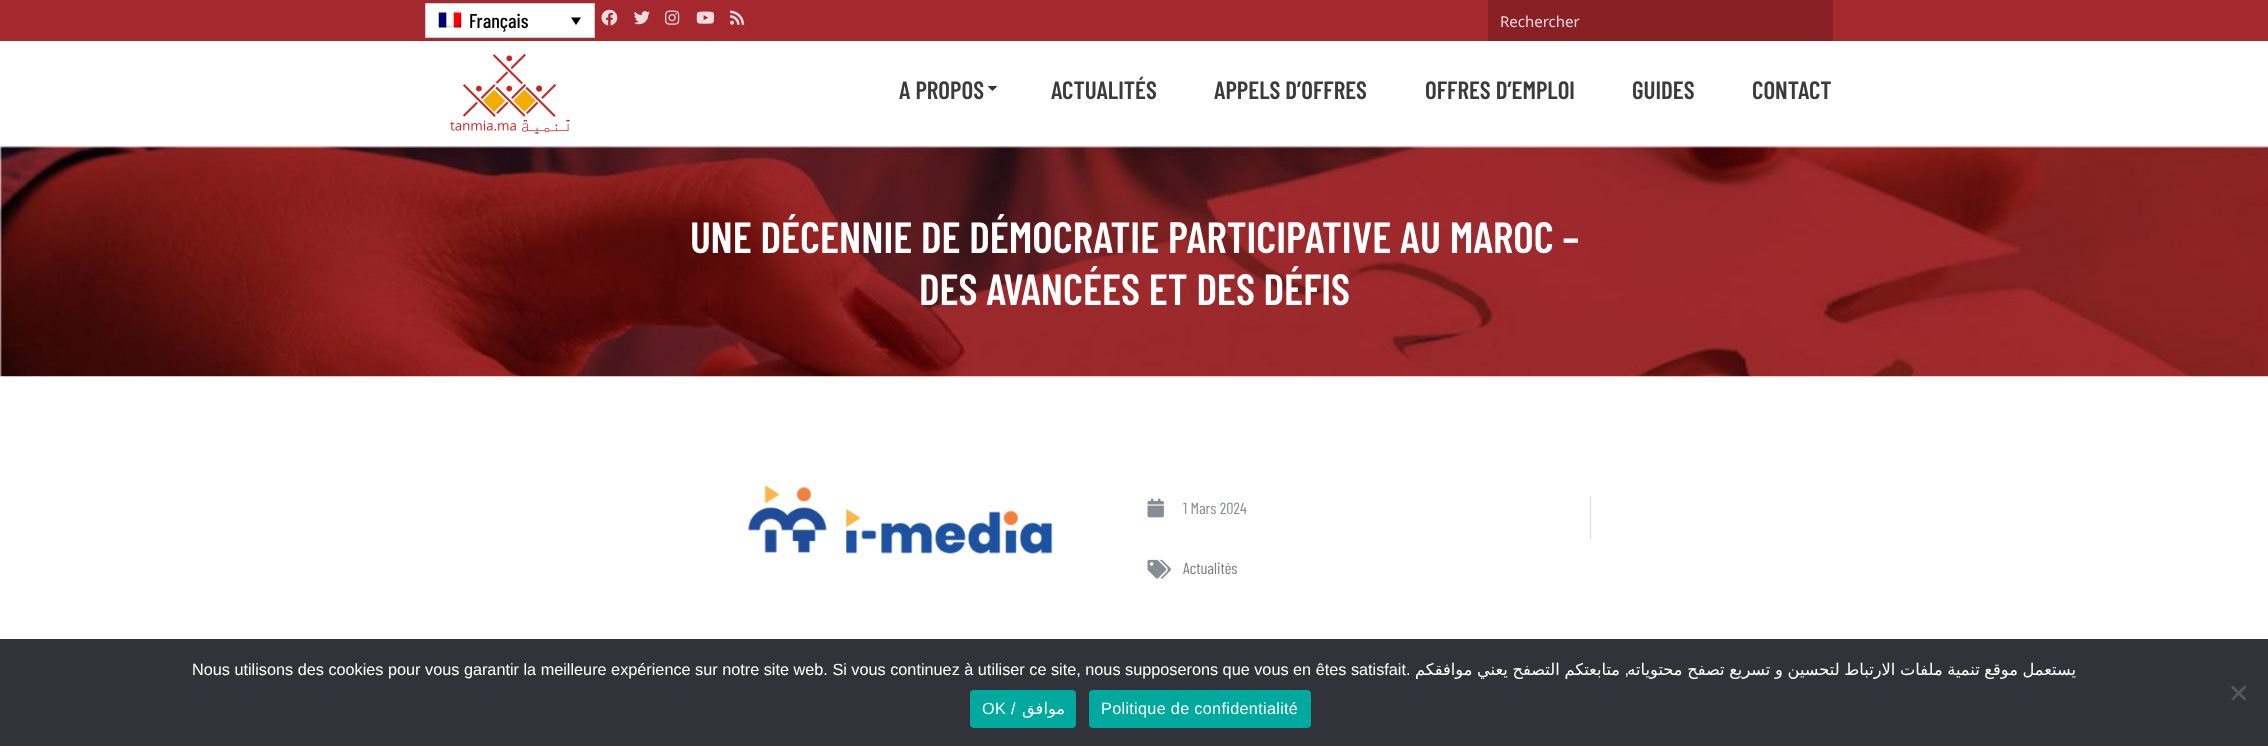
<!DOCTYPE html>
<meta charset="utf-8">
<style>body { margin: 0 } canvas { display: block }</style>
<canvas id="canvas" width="2268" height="746"></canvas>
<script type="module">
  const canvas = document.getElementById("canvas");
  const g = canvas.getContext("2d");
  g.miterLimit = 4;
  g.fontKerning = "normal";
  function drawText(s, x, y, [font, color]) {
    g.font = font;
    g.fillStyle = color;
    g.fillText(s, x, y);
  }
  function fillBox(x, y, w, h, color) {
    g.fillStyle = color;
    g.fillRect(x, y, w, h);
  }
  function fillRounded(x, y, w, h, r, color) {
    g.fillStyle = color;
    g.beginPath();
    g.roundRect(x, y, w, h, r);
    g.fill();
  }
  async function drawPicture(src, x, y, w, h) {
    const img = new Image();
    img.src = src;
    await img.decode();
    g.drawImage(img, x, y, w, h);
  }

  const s1 = ["500 20px Barlow Condensed", "#000000"];
  const s2 = ["15px Noto Sans", "#ECDBDC"];
  const s3 = ["600 25px Barlow Condensed", "#3B3B3B"];
  const s4 = ["600 43.75px Barlow Condensed", "#FFFFFF"];
  const s5 = ["16.25px Barlow Condensed", "#878D95"];
  const s6 = ["16.25px Barlow Condensed", "#7D7D7D"];
  const s7 = ["16.25px Liberation Sans", "#FFFFFF"];
  const s8 = ["16.25px DejaVu Sans", "#FFFFFF"];

  fillBox(0, 0, 2268, 746, "#FFFFFF");
  fillBox(0, 0, 2268, 41, "#A5282F");
  g.fillStyle = "#FFFFFF";
  g.beginPath();
  g.rect(425.5, 3.5, 169, 34);
  g.fill();
  g.strokeStyle = "#CDCDCD";
  g.stroke();
  await drawPicture("pic1.png", 438, 12, 24, 16);
  drawText("Français", 469, 28, s1);
  g.beginPath();
  g.moveTo(571, 17.5);
  g.lineTo(581, 17.5);
  g.lineTo(576, 25);
  g.closePath();
  g.fill();
  await drawPicture("pic2.png", 601, 9, 17, 17);
  await drawPicture("pic3.png", 634, 11, 16, 14);
  await drawPicture("pic4.png", 665, 10, 15, 15);
  await drawPicture("pic5.png", 696, 11, 19, 13);
  await drawPicture("pic6.png", 730, 10, 15, 15);
  fillBox(1488, 0, 345, 41, "#882026");
  drawText("Rechercher", 1500, 27, s2);
  await drawPicture("pic7.png", 450, 54, 120, 80);
  drawText("A PROPOS", 899, 99, s3);
  g.fillStyle = "#333333";
  g.beginPath();
  g.moveTo(987.5, 86);
  g.lineTo(997.5, 86);
  g.lineTo(992.5, 91);
  g.closePath();
  g.fill();
  drawText("ACTUALITÉS", 1051, 99, s3);
  drawText("APPELS D’OFFRES", 1214, 99, s3);
  drawText("OFFRES D’EMPLOI", 1425, 99, s3);
  drawText("GUIDES", 1632, 99, s3);
  drawText("CONTACT", 1752, 99, s3);
  await drawPicture("pic8.png", 0, 146, 2268, 231);
  drawText("UNE DÉCENNIE DE DÉMOCRATIE PARTICIPATIVE AU MAROC –", 690, 253, s4);
  drawText("DES AVANCÉES ET DES DÉFIS", 919, 305, s4);
  await drawPicture("pic9.png", 748, 485, 305, 69);
  fillBox(1590, 496, 1, 43, "#DDDDDD");
  await drawPicture("pic10.png", 1147, 498, 17, 20);
  drawText("1 Mars 2024", 1183, 514, s5);
  await drawPicture("pic11.png", 1147, 559, 24, 20);
  drawText("Actualités", 1183, 574, s6);
  fillBox(0, 639, 2268, 107, "#32323A");
  drawText("Nous utilisons des cookies pour vous garantir la meilleure expérience sur notre site web. Si vous continuez à utiliser ce site, nous supposerons que vous en êtes satisfait.", 192, 675, s7);
  g.wordSpacing = "-0.5px";
  g.direction = "rtl";
  drawText("متابعتكم التصفح يعني موافقكم", 1620, 675, s8);
  g.wordSpacing = "0px";
  drawText(",", 1629, 675, s7);
  g.wordSpacing = "-0.5px";
  drawText("يستعمل موقع تنمية ملفات الارتباط لتحسين و تسريع تصفح محتوياته", 2076, 675, s8);
  g.fillStyle = "#59595D";
  g.beginPath();
  g.moveTo(2244.5, 685.5);
  g.lineTo(2246.5, 687.5);
  g.lineTo(2233, 700.5);
  g.lineTo(2231, 699);
  g.closePath();
  g.fill();
  g.beginPath();
  g.moveTo(2231, 687.5);
  g.lineTo(2233, 685.5);
  g.lineTo(2246.5, 699);
  g.lineTo(2244.5, 700.5);
  g.closePath();
  g.fill();
  fillRounded(970, 690, 106, 38, 4, "#00A99D");
  g.letterSpacing = "0.3px";
  g.wordSpacing = "0px";
  g.direction = "ltr";
  drawText("OK /", 982, 714, s7);
  g.direction = "rtl";
  drawText("موافق", 1065, 714, s8);
  fillRounded(1089, 690, 222, 38, 4, "#00A99D");
  g.direction = "ltr";
  drawText("Politique de confidentialité", 1101, 714, s7);
</script>
